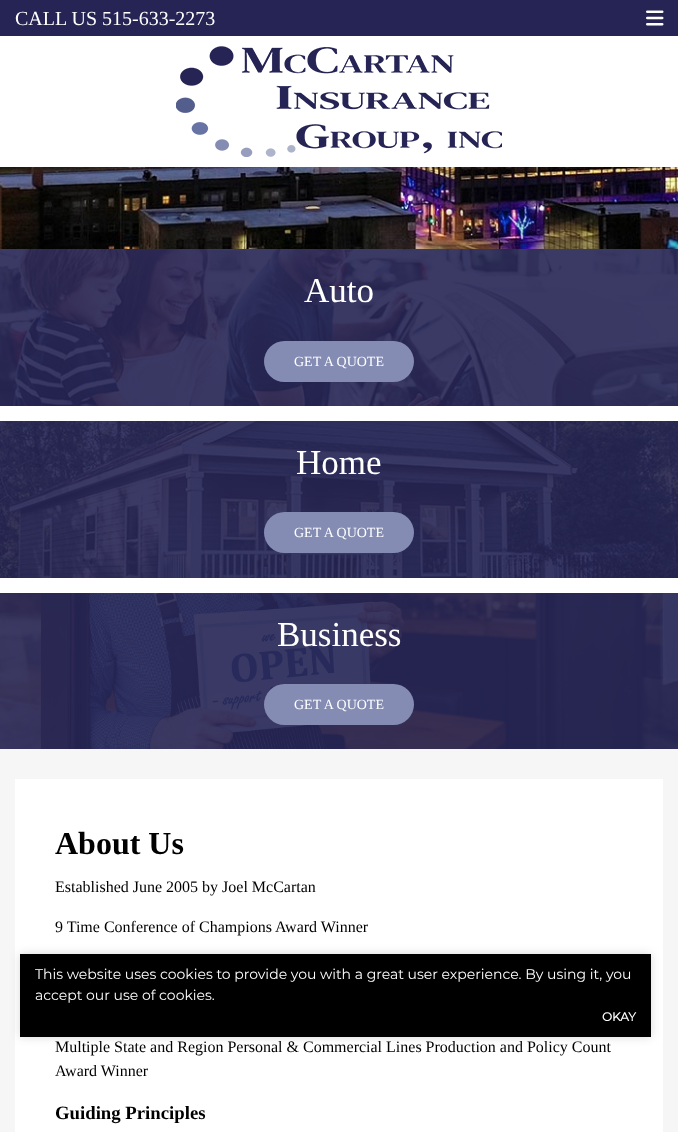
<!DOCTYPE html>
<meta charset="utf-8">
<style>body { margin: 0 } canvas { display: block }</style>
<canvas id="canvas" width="678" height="1132"></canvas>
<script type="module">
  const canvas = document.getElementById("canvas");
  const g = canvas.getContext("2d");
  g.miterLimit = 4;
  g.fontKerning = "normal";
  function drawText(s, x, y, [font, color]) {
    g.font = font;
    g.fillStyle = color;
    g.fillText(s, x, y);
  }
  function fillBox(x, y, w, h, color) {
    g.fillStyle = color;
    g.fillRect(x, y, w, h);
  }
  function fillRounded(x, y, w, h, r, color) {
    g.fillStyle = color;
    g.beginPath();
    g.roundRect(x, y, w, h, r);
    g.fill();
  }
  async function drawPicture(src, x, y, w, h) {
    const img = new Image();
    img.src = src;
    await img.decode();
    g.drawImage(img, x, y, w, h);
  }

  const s1 = ["20px Liberation Serif", "#FFFFFF"];
  const s2 = ["35px Liberation Serif", "#FFFFFF"];
  const s3 = ["14px Liberation Serif", "#FFFFFF"];
  const s4 = ["bold 32px Liberation Serif", "#000000"];
  const s5 = ["16px Liberation Serif", "#000000"];
  const s6 = ["bold 18.75px Liberation Serif", "#000000"];
  const s7 = ["100 14px Montserrat", "#FFFFFF"];
  const s8 = ["bold 12px Montserrat", "#FFFFFF"];

  fillBox(0, 0, 678, 1132, "#FFFFFF");
  fillBox(0, 0, 678, 36, "#252454");
  drawText("CALL US 515-633-2273", 15, 25, s1);
  await drawPicture("pic1.png", 646, 10, 18, 16);
  await drawPicture("pic2.png", 176, 46, 326, 111);
  await drawPicture("pic3.png", 0, 167, 678, 82);
  await drawPicture("pic4.png", 0, 249, 678, 157);
  drawText("Auto", 304, 302, s2);
  fillRounded(264, 341, 150, 41, 20.5, "#848CB4");
  drawText("GET A QUOTE", 294, 366, s3);
  await drawPicture("pic5.png", 0, 421, 678, 157);
  drawText("Home", 296, 474, s2);
  fillRounded(264, 512, 150, 41, 20.5, "#848CB4");
  drawText("GET A QUOTE", 294, 537, s3);
  await drawPicture("pic6.png", 0, 593, 678, 156);
  drawText("Business", 277, 646, s2);
  fillRounded(264, 684, 150, 41, 20.5, "#848CB4");
  drawText("GET A QUOTE", 294, 709, s3);
  fillBox(0, 749, 678, 383, "#F6F6F6");
  fillBox(15, 779, 648, 353, "#FFFFFF");
  drawText("About Us", 55, 854, s4);
  drawText("Established June 2005 by Joel McCartan", 55, 892, s5);
  drawText("9 Time Conference of Champions Award Winner", 55, 932, s5);
  drawText("Multiple State and Region Personal & Commercial Lines Production and Policy Count", 55, 1052, s5);
  drawText("Award Winner", 55, 1076, s5);
  drawText("Guiding Principles", 55, 1119, s6);
  g.fillStyle = "rgba(0, 0, 0, 0.15)";
  g.filter = "blur(5px)";
  g.beginPath();
  g.rect(20, 954, 631, 83);
  g.fill();
  g.filter = "none";
  fillBox(20, 954, 631, 83, "#000000");
  drawText("This website uses cookies to provide you with a great user experience. By using it, you", 35, 979, s7);
  drawText("accept our use of cookies.", 35, 1000, s7);
  drawText("OKAY", 602, 1021, s8);
</script>
